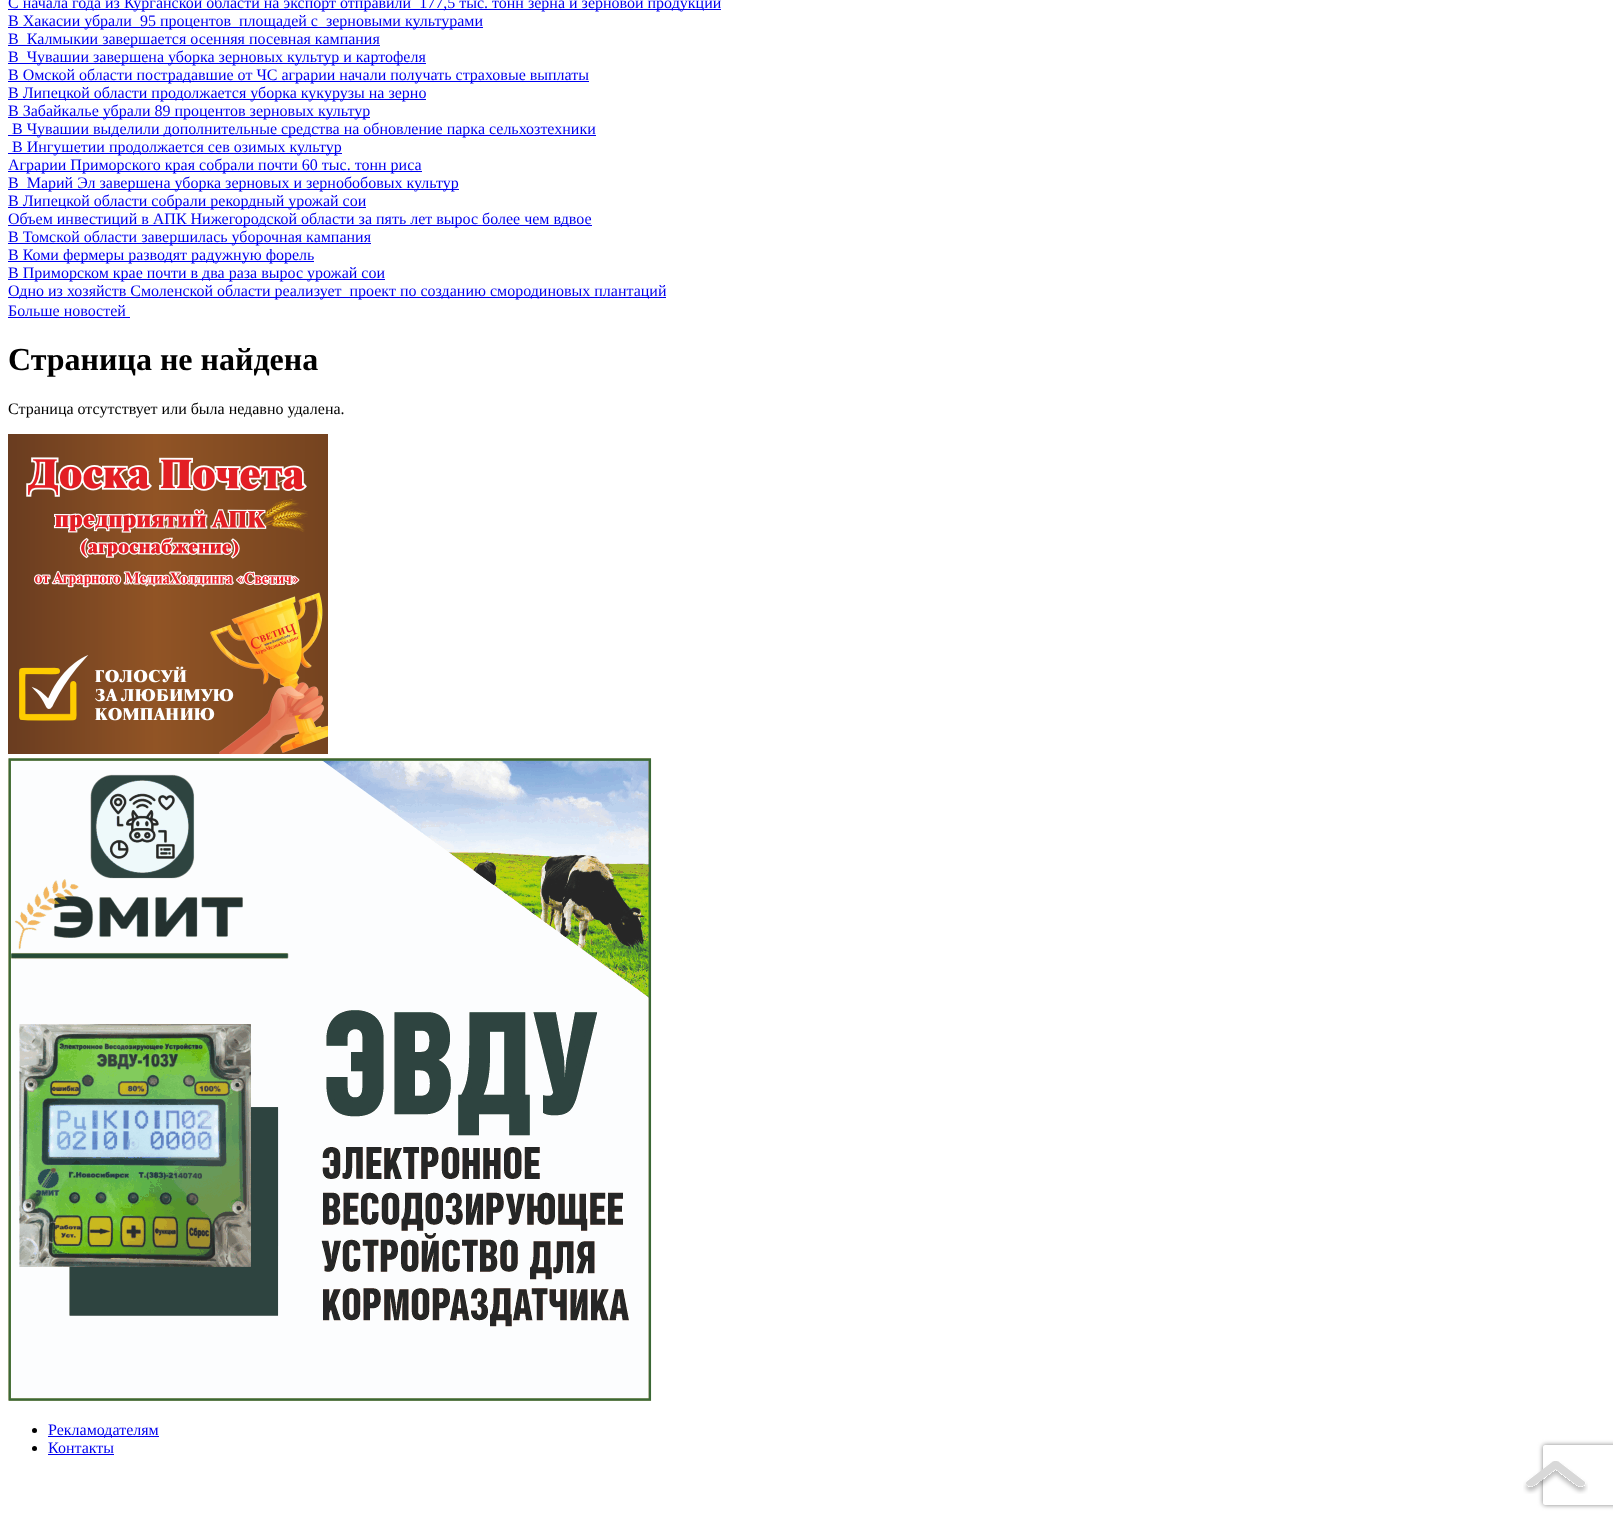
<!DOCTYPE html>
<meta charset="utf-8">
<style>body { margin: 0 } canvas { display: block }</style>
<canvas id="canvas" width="1613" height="1519"></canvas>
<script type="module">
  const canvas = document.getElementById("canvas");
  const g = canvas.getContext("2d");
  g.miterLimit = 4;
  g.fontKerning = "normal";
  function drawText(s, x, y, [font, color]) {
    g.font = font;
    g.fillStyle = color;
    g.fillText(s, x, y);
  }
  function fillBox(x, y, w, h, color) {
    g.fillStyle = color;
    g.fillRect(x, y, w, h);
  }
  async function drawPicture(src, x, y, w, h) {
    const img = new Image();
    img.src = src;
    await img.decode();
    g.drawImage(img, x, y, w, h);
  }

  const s1 = ["16px Liberation Serif", "#0000EE"];
  const s2 = ["bold 32px Liberation Serif", "#000000"];
  const s3 = ["16px Liberation Serif", "#000000"];

  fillBox(0, 0, 1613, 1519, "#FFFFFF");
  fillBox(8, 9, 713, 1, "#0000EE");
  drawText("С начала года из Курганской области на экспорт отправили  177,5 тыс. тонн зерна и зерновой продукции", 8, 8, s1);
  fillBox(8, 27, 475, 1, "#0000EE");
  drawText("В Хакасии убрали  95 процентов  площадей с  зерновыми культурами", 8, 26, s1);
  fillBox(8, 45, 372, 1, "#0000EE");
  drawText("В  Калмыкии завершается осенняя посевная кампания", 8, 44, s1);
  fillBox(8, 63, 418, 1, "#0000EE");
  drawText("В  Чувашии завершена уборка зерновых культур и картофеля", 8, 62, s1);
  fillBox(8, 81, 581, 1, "#0000EE");
  drawText("В Омской области пострадавшие от ЧС аграрии начали получать страховые выплаты", 8, 80, s1);
  fillBox(8, 99, 418, 1, "#0000EE");
  drawText("В Липецкой области продолжается уборка кукурузы на зерно", 8, 98, s1);
  fillBox(8, 117, 362, 1, "#0000EE");
  drawText("В Забайкалье убрали 89 процентов зерновых культур", 8, 116, s1);
  fillBox(8, 135, 588, 1, "#0000EE");
  drawText("В Чувашии выделили дополнительные средства на обновление парка сельхозтехники", 12, 134, s1);
  fillBox(8, 153, 334, 1, "#0000EE");
  drawText("В Ингушетии продолжается сев озимых культур", 12, 152, s1);
  fillBox(8, 171, 414, 1, "#0000EE");
  drawText("Аграрии Приморского края собрали почти 60 тыс. тонн риса", 8, 170, s1);
  fillBox(8, 189, 451, 1, "#0000EE");
  drawText("В  Марий Эл завершена уборка зерновых и зернобобовых культур", 8, 188, s1);
  fillBox(8, 207, 358, 1, "#0000EE");
  drawText("В Липецкой области собрали рекордный урожай сои", 8, 206, s1);
  fillBox(8, 225, 584, 1, "#0000EE");
  drawText("Объем инвестиций в АПК Нижегородской области за пять лет вырос более чем вдвое", 8, 224, s1);
  fillBox(8, 243, 363, 1, "#0000EE");
  drawText("В Томской области завершилась уборочная кампания", 8, 242, s1);
  fillBox(8, 261, 306, 1, "#0000EE");
  drawText("В Коми фермеры разводят радужную форель", 8, 260, s1);
  fillBox(8, 279, 377, 1, "#0000EE");
  drawText("В Приморском крае почти в два раза вырос урожай сои", 8, 278, s1);
  fillBox(8, 297, 658, 1, "#0000EE");
  drawText("Одно из хозяйств Смоленской области реализует  проект по созданию смородиновых плантаций", 8, 296, s1);
  drawText("Больше новостей", 8, 316, s1);
  fillBox(8, 317, 122, 1, "#0000EE");
  drawText("Страница не найдена", 8, 370, s2);
  drawText("Страница отсутствует или была недавно удалена.", 8, 414, s3);
  await drawPicture("pic1.png", 8, 434, 320, 320);
  await drawPicture("pic2.png", 8, 758, 644, 643);
  g.beginPath();
  g.arc(34.5, 1430.5, 2.5, 0, Math.PI * 2);
  g.fill();
  fillBox(48, 1436, 111, 1, "#0000EE");
  drawText("Рекламодателям", 48, 1435, s1);
  g.fillStyle = "#000000";
  g.beginPath();
  g.arc(34.5, 1448.5, 2.5, 0, Math.PI * 2);
  g.fill();
  drawText("Контакты", 48, 1453, s1);
  fillBox(48, 1454, 66, 1, "#0000EE");
  g.save();
  g.beginPath();
  g.moveTo(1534, 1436);
  g.lineTo(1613, 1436);
  g.lineTo(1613, 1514);
  g.lineTo(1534, 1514);
  g.closePath();
  g.moveTo(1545, 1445);
  g.lineTo(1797, 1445);
  g.bezierCurveTo(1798, 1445, 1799, 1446, 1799, 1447);
  g.lineTo(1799, 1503);
  g.bezierCurveTo(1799, 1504, 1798, 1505, 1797, 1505);
  g.lineTo(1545, 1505);
  g.bezierCurveTo(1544, 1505, 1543, 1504, 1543, 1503);
  g.lineTo(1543, 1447);
  g.bezierCurveTo(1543, 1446, 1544, 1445, 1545, 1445);
  g.closePath();
  g.clip("evenodd");
  g.fillStyle = "#808080";
  g.filter = "blur(2.5px)";
  g.beginPath();
  g.roundRect(1543, 1445, 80, 60, 2);
  g.fill();
  g.filter = "none";
  g.restore();
  await drawPicture("pic3.png", 1523, 1461, 65, 33);
</script>
